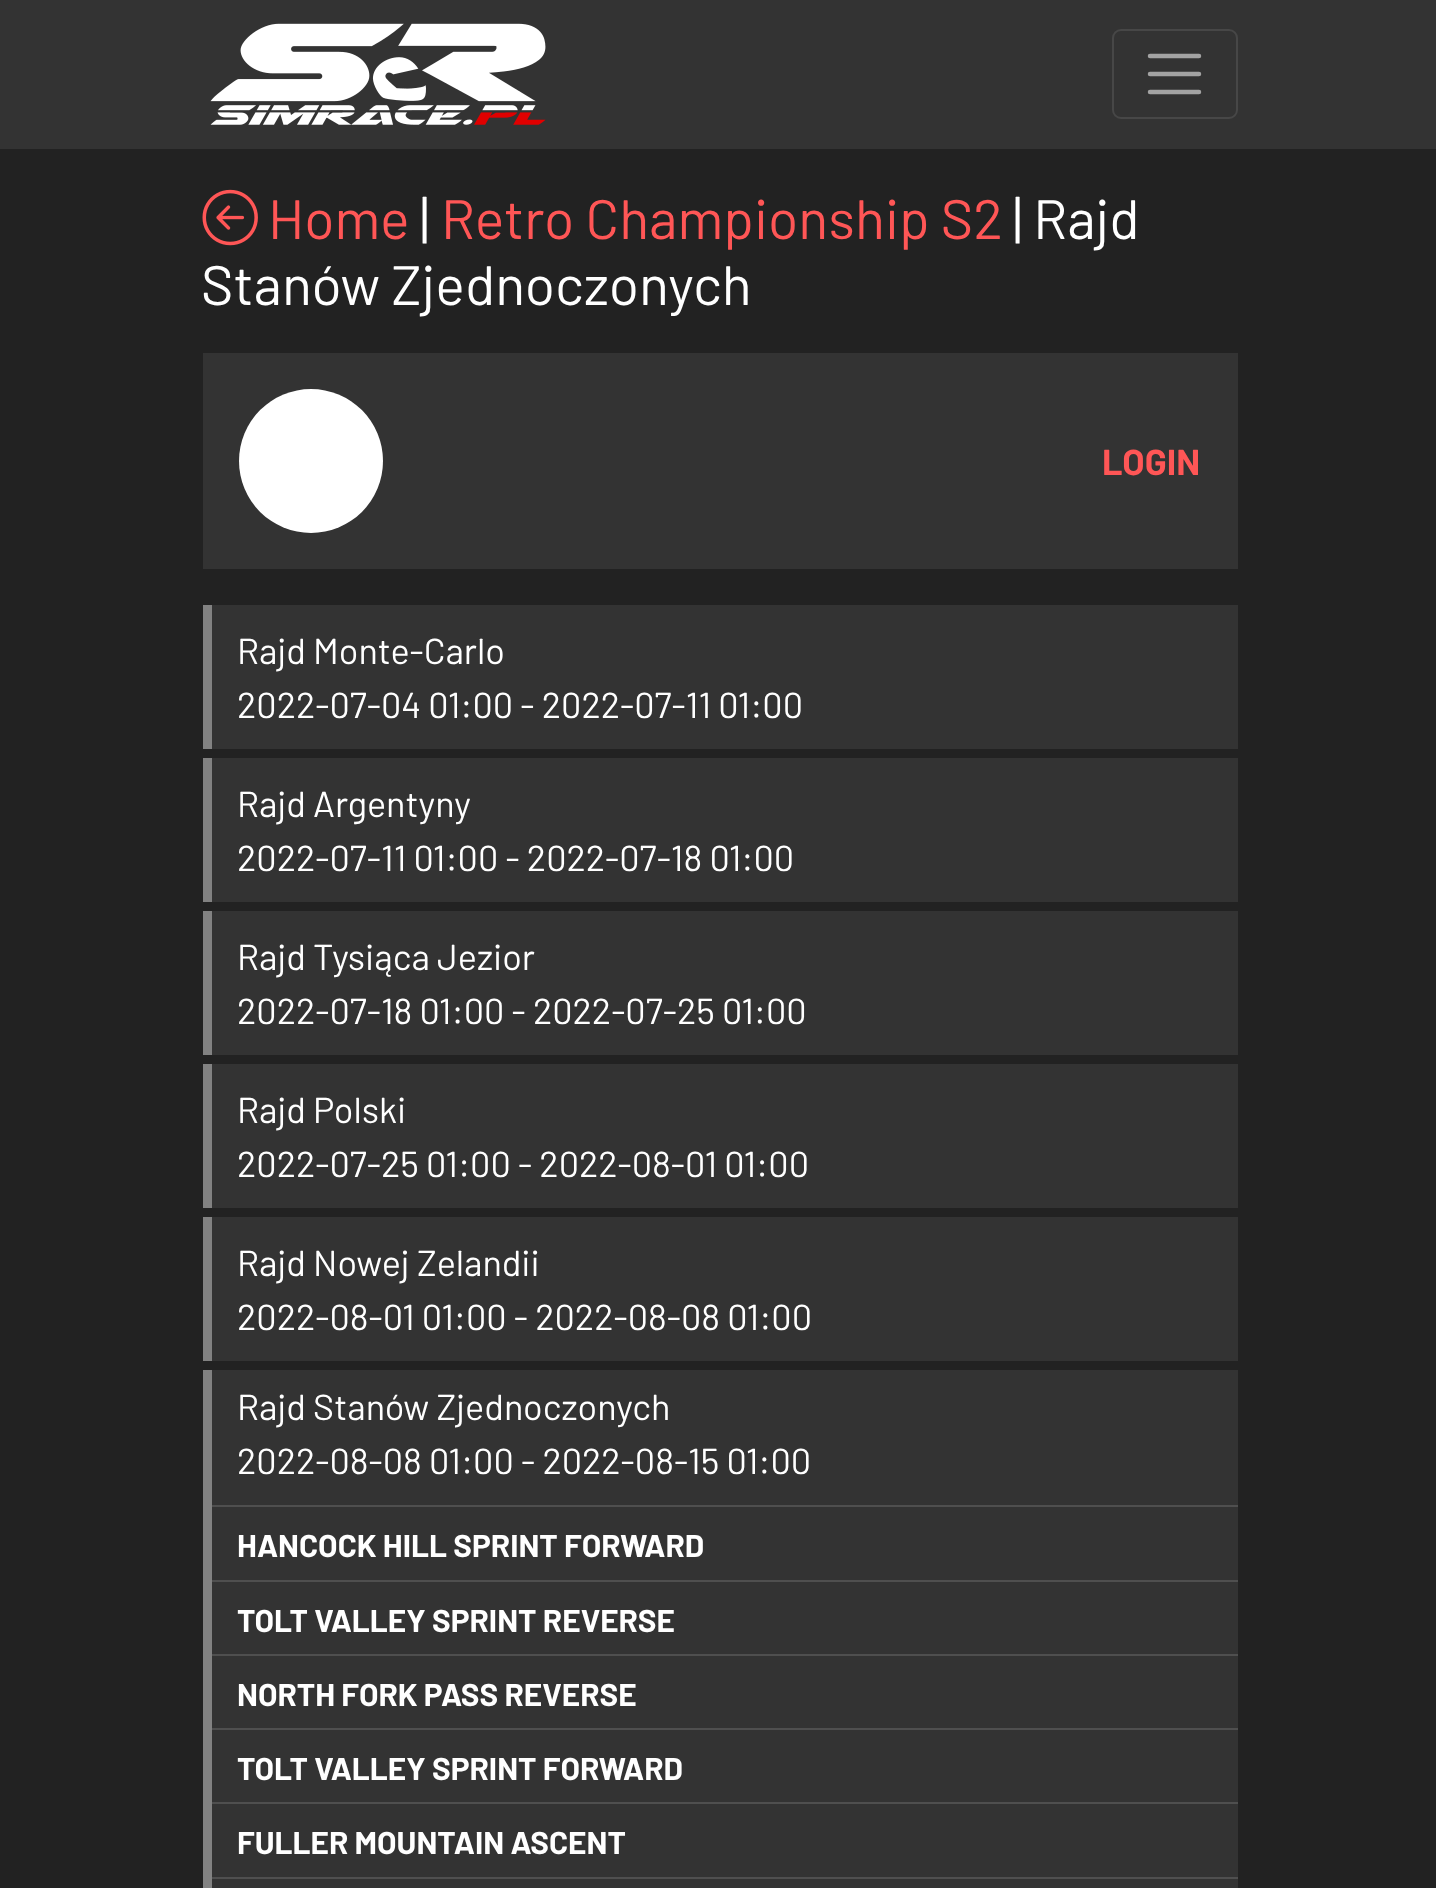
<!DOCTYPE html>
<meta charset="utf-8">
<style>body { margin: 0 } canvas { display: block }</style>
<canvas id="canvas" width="1436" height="1888"></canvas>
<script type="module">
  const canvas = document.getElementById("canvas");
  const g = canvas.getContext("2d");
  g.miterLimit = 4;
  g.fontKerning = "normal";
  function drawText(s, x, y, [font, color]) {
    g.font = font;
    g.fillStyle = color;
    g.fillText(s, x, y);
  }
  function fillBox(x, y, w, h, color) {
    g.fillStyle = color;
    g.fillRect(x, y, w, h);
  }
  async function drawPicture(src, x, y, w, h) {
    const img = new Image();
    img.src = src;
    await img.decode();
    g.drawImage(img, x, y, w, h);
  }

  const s1 = ["55.5px Barlow", "#FF5656"];
  const s2 = ["55.5px Barlow", "#FFFFFF"];
  const s3 = ["bold 36px Barlow", "#FF5656"];
  const s4 = ["36px Barlow", "#FFFFFF"];
  const s5 = ["bold 31.5px Barlow", "#FFFFFF"];

  fillBox(0, 0, 1436, 1888, "#222222");
  fillBox(0, 0, 1436, 149, "#333333");
  await drawPicture("pic1.png", 210, 23, 336, 102);
  g.beginPath();
  g.roundRect(1113, 30, 124, 88, 8);
  g.strokeStyle = "#474747";
  g.lineWidth = 2;
  g.stroke();
  g.beginPath();
  g.moveTo(1150, 56);
  g.lineTo(1199, 56);
  g.moveTo(1150, 74);
  g.lineTo(1199, 74);
  g.moveTo(1150, 92);
  g.lineTo(1199, 92);
  g.strokeStyle = "#A3A3A3";
  g.lineWidth = 4.5;
  g.lineCap = "round";
  g.stroke();
  await drawPicture("pic2.png", 202, 189, 56, 57);
  drawText("Home", 268, 239, s1);
  drawText("|", 420, 239, s2);
  drawText("Retro Championship S2", 441, 239, s1);
  drawText("| Rajd", 1013, 239, s2);
  drawText("Stanów Zjednoczonych", 201, 305, s2);
  fillBox(203, 353, 1035, 216, "#333333");
  g.fillStyle = "#FFFFFF";
  g.beginPath();
  g.arc(311, 461, 72, 0, Math.PI * 2);
  g.fill();
  drawText("LOGIN", 1102, 475, s3);
  fillBox(212, 605, 1026, 144, "#333333");
  fillBox(203, 605, 9, 144, "#828282");
  drawText("Rajd Monte-Carlo", 237, 664, s4);
  drawText("2022-07-04 01:00 - 2022-07-11 01:00", 237, 718, s4);
  fillBox(212, 758, 1026, 144, "#333333");
  fillBox(203, 758, 9, 144, "#828282");
  drawText("Rajd Argentyny", 237, 817, s4);
  drawText("2022-07-11 01:00 - 2022-07-18 01:00", 237, 871, s4);
  fillBox(212, 911, 1026, 144, "#333333");
  fillBox(203, 911, 9, 144, "#828282");
  drawText("Rajd Tysiąca Jezior", 237, 970, s4);
  drawText("2022-07-18 01:00 - 2022-07-25 01:00", 237, 1024, s4);
  fillBox(212, 1064, 1026, 144, "#333333");
  fillBox(203, 1064, 9, 144, "#828282");
  drawText("Rajd Polski", 237, 1123, s4);
  drawText("2022-07-25 01:00 - 2022-08-01 01:00", 237, 1177, s4);
  fillBox(212, 1217, 1026, 144, "#333333");
  fillBox(203, 1217, 9, 144, "#828282");
  drawText("Rajd Nowej Zelandii", 237, 1276, s4);
  drawText("2022-08-01 01:00 - 2022-08-08 01:00", 237, 1330, s4);
  fillBox(212, 1370, 1026, 518, "#333333");
  fillBox(203, 1370, 9, 518, "#828282");
  drawText("Rajd Stanów Zjednoczonych", 237, 1420, s4);
  drawText("2022-08-08 01:00 - 2022-08-15 01:00", 237, 1474, s4);
  fillBox(212, 1505, 1026, 2, "#4F4F4F");
  drawText("HANCOCK HILL SPRINT FORWARD", 237, 1557, s5);
  fillBox(212, 1580, 1026, 2, "#4F4F4F");
  drawText("TOLT VALLEY SPRINT REVERSE", 237, 1632, s5);
  fillBox(212, 1654, 1026, 2, "#4F4F4F");
  drawText("NORTH FORK PASS REVERSE", 237, 1706, s5);
  fillBox(212, 1728, 1026, 2, "#4F4F4F");
  drawText("TOLT VALLEY SPRINT FORWARD", 237, 1780, s5);
  fillBox(212, 1802, 1026, 2, "#4F4F4F");
  drawText("FULLER MOUNTAIN ASCENT", 237, 1854, s5);
  fillBox(212, 1877, 1026, 2, "#4F4F4F");
</script>
